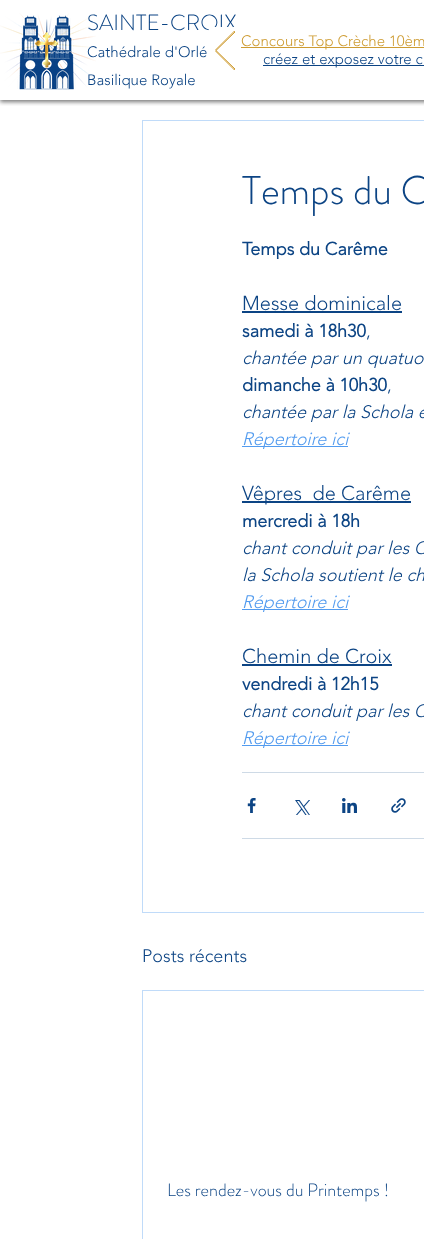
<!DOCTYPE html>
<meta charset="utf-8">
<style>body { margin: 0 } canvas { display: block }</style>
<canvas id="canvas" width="424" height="1239"></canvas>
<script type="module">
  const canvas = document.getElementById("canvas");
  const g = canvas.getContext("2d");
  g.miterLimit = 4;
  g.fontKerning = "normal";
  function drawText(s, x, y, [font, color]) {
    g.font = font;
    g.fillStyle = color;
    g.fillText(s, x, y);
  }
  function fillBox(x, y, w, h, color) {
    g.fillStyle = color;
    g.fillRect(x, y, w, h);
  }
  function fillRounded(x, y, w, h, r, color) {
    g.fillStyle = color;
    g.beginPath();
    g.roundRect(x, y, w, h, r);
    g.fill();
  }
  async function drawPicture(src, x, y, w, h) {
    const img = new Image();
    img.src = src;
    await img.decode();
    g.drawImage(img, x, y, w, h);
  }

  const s1 = ["300 22px 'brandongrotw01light'", "#0C4484"];
  const s2 = ["300 15px 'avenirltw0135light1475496'", "#0C4484"];
  const s3 = ["300 15px 'avenirltw0135light1475496'", "#CE9C32"];
  const s4 = ["300 40px 'brandongrotw01light'", "#0C4484"];
  const s5 = ["bold 18px 'avenirltw0135light1475496'", "#0C4484"];
  const s6 = ["300 20px 'avenirltw0135light1475496'", "#0C4484"];
  const s7 = ["300 18px 'avenirltw0135light1475496'", "#0C4484"];
  const s8 = ["italic 300 18px 'avenirltw0135light1475496'", "#0C4484"];
  const s9 = ["italic 300 18px 'avenirltw0135light1475496'", "#529BEF"];
  const s10 = ["300 18px 'brandongrotw01light'", "#0C4484"];

  fillBox(0, 0, 424, 1239, "#FFFFFF");
  g.save();
  g.beginPath();
  g.rect(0, 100, 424, 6);
  g.clip();
  g.fillStyle = "rgba(0, 0, 0, 0.53)";
  g.filter = "blur(2px)";
  g.beginPath();
  g.rect(0, 2, 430, 100);
  g.fill();
  g.filter = "none";
  g.restore();
  await drawPicture("pic1.png", 0, 13, 96, 77);
  drawText("SAINTE-CROIX", 87, 30, s1);
  drawText("Cathédrale d'Orlé", 87, 57, s2);
  drawText("Basilique Royale", 87, 85, s2);
  fillRounded(208, 27, 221, 50, 5, "#FFFFFF");
  g.save();
  g.beginPath();
  g.rect(215, 31, 20, 39);
  g.clip();
  g.beginPath();
  g.moveTo(234.5, 70);
  g.lineTo(215, 50.5);
  g.lineTo(234.5, 31);
  g.lineTo(235, 32);
  g.lineTo(216, 50.5);
  g.lineTo(235, 69);
  g.closePath();
  g.strokeStyle = "#CE9C32";
  g.stroke();
  g.restore();
  fillBox(241, 47, 183, 1, "#CE9C32");
  drawText("Concours Top Crèche 10èm", 241, 46, s3);
  fillBox(263, 65, 161, 1, "#0C4484");
  drawText("créez et exposez votre c", 263, 64, s2);
  g.strokeStyle = "#C0DBF9";
  g.strokeRect(142.5, 120.5, 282, 792);
  drawText("Temps du C", 242, 204, s4);
  drawText("Temps du Carême", 242, 255, s5);
  drawText("Messe dominicale", 242, 310, s6);
  fillBox(242, 311, 160, 2, "#0C4484");
  drawText("samedi à 18h30", 242, 337, s5);
  drawText(",", 366, 337, s7);
  drawText("chantée par un quatuo", 242, 364, s8);
  drawText("dimanche à 10h30", 242, 391, s5);
  drawText(",", 387, 391, s7);
  drawText("chantée par la Schola e", 242, 418, s8);
  fillBox(242, 446, 106, 1, "#529BEF");
  drawText("Répertoire ici", 242, 445, s9);
  fillBox(242, 501, 169, 2, "#0C4484");
  drawText("Vêpres  de Carême", 242, 500, s6);
  drawText("mercredi à 18h", 242, 527, s5);
  drawText("chant conduit par les C", 242, 554, s8);
  drawText("la Schola soutient le ch", 242, 581, s8);
  fillBox(242, 609, 106, 1, "#529BEF");
  drawText("Répertoire ici", 242, 608, s9);
  drawText("Chemin de Croix", 242, 663, s6);
  fillBox(242, 664, 150, 2, "#0C4484");
  drawText("vendredi à 12h15", 242, 690, s5);
  drawText("chant conduit par les C", 242, 717, s8);
  fillBox(242, 745, 106, 1, "#529BEF");
  drawText("Répertoire ici", 242, 744, s9);
  fillBox(242, 772, 182, 1, "#CEDAE6");
  await drawPicture("pic2.png", 247, 798, 9, 15);
  await drawPicture("pic3.png", 295, 800, 15, 15);
  await drawPicture("pic4.png", 342, 798, 15, 15);
  await drawPicture("pic5.png", 391, 798, 15, 15);
  fillBox(242, 838, 182, 1, "#CEDAE6");
  drawText("Posts récents", 142, 962, s7);
  g.strokeRect(142.5, 990.5, 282, 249);
  drawText("Les rendez-vous du Printemps !", 167, 1196, s10);
</script>
